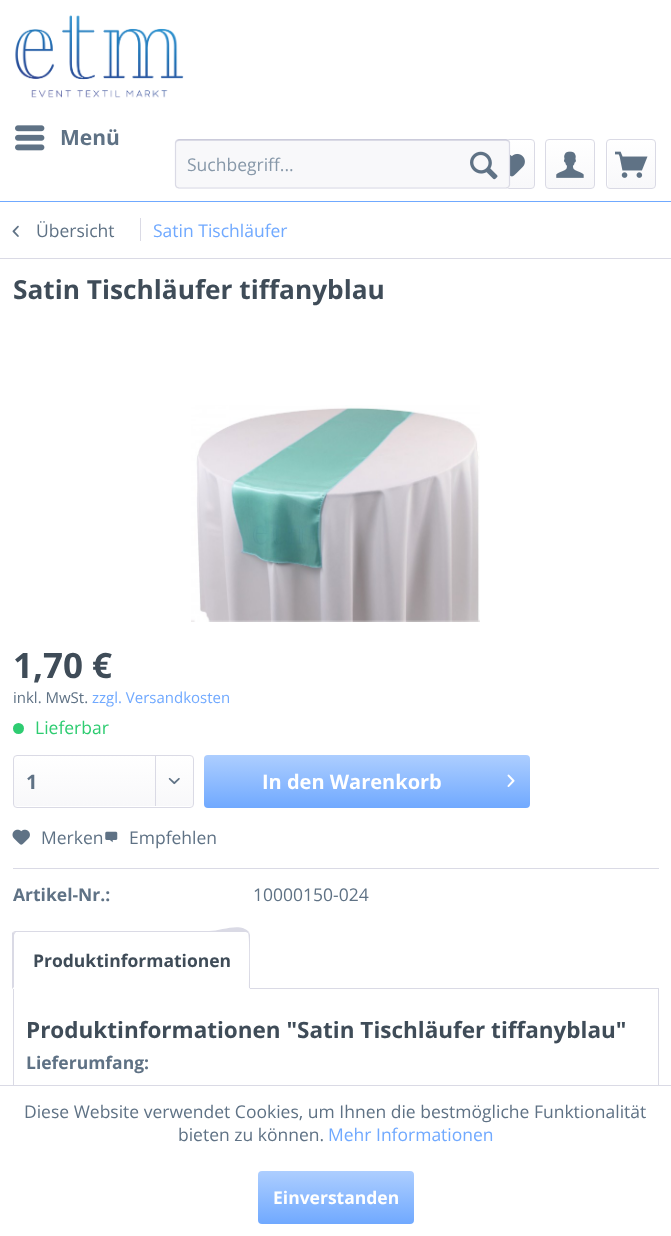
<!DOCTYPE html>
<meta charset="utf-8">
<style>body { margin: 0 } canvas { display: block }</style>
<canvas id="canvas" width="671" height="1236"></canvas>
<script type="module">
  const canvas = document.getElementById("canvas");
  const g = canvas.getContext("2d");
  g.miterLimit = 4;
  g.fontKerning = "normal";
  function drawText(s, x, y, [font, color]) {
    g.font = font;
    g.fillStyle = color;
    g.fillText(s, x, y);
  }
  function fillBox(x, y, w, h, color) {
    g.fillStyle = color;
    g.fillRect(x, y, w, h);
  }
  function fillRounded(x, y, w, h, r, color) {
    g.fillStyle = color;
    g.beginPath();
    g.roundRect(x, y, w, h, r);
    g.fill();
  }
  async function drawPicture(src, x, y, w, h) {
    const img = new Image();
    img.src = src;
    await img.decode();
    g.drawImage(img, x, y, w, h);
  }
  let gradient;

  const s1 = ["bold 21px Open Sans", "#5F7285"];
  const s2 = ["17.5px Open Sans", "#8798A9"];
  const s3 = ["17.5px Open Sans", "#5F7285"];
  const s4 = ["17.5px Open Sans", "#70A9FF"];
  const s5 = ["bold 26.25px Open Sans", "#3F4C58"];
  const s6 = ["bold 35px Open Sans", "#3F4C58"];
  const s7 = ["15px Open Sans", "#5F7285"];
  const s8 = ["15px Open Sans", "#70A9FF"];
  const s9 = ["17.5px Open Sans", "#2ECC71"];
  const s10 = ["bold 20px Open Sans", "#5F7285"];
  const s11 = ["bold 20px Open Sans", "#FFFFFF"];
  const s12 = ["bold 17.5px Open Sans", "#5F7285"];
  const s13 = ["bold 17.5px Open Sans", "#3F4C58"];
  const s14 = ["bold 22.5px Open Sans", "#3F4C58"];
  const s15 = ["bold 17.5px Open Sans", "#FFFFFF"];

  fillBox(0, 0, 671, 1236, "#FFFFFF");
  fillBox(0, 201, 671, 1, "#70A9FF");
  await drawPicture("pic1.png", 15, 15, 169, 83);
  await drawPicture("pic2.png", 15, 125, 30, 26);
  drawText("Menü", 60, 145, s1);
  gradient = g.createLinearGradient(510, 140, 510, 188);
  gradient.addColorStop(0, "#FFFFFF");
  gradient.addColorStop(1, "#F8F8FA");
  g.fillStyle = gradient;
  g.beginPath();
  g.roundRect(486, 140, 48, 48, 2.5);
  g.fill();
  g.beginPath();
  g.roundRect(485.5, 139.5, 49, 49, 3.5);
  g.strokeStyle = "#DADAE5";
  g.stroke();
  fillRounded(175, 139, 335, 50, 4, "#F8F8FA");
  g.fillStyle = "#DADAE5";
  g.beginPath();
  g.moveTo(179, 141);
  g.lineTo(506, 141);
  g.bezierCurveTo(508, 141, 509, 142, 509, 144);
  g.bezierCurveTo(509, 142, 509, 140, 506, 140);
  g.lineTo(178, 140);
  g.lineTo(176, 141);
  g.lineTo(176, 144);
  g.bezierCurveTo(176, 142, 177, 141, 179, 141);
  g.closePath();
  g.fill();
  g.beginPath();
  g.moveTo(176.5, 140.5);
  g.lineTo(179, 139.5);
  g.lineTo(506, 139.5);
  g.lineTo(508.5, 140.5);
  g.strokeStyle = "#CBCBDB";
  g.lineWidth = 1.2;
  g.stroke();
  await drawPicture("pic4.png", 510, 153, 15, 24);
  g.beginPath();
  g.moveTo(508.5, 140.5);
  g.lineTo(509.5, 142.5);
  g.lineTo(509.5, 185);
  g.lineTo(508.5, 187);
  g.lineTo(506, 188);
  g.lineTo(179, 188);
  g.lineTo(176.5, 187);
  g.lineTo(175.5, 185);
  g.lineTo(175.5, 142.5);
  g.lineTo(176.5, 140.5);
  g.strokeStyle = "#DADAE5";
  g.stroke();
  drawText("Suchbegriff...", 187, 171, s2);
  await drawPicture("pic3.png", 470, 151, 28, 29);
  gradient = g.createLinearGradient(570, 140, 570, 188);
  gradient.addColorStop(0, "#FFFFFF");
  gradient.addColorStop(1, "#F8F8FA");
  g.fillStyle = gradient;
  g.beginPath();
  g.roundRect(546, 140, 48, 48, 2.5);
  g.fill();
  g.beginPath();
  g.roundRect(545.5, 139.5, 49, 49, 3.5);
  g.lineWidth = 1;
  g.stroke();
  await drawPicture("pic5.png", 556, 151, 28, 27);
  gradient = g.createLinearGradient(631, 140, 631, 188);
  gradient.addColorStop(0, "#FFFFFF");
  gradient.addColorStop(1, "#F8F8FA");
  g.fillStyle = gradient;
  g.beginPath();
  g.roundRect(608, 140, 47, 48, 2.5);
  g.fill();
  g.beginPath();
  g.roundRect(606.5, 139.5, 49, 49, 3.5);
  g.stroke();
  await drawPicture("pic6.png", 615, 151, 33, 27);
  fillBox(0, 258, 671, 1, "#DADAE5");
  await drawPicture("pic7.png", 12, 225, 7, 12);
  drawText("Übersicht", 36, 237, s3);
  fillBox(140, 218, 1, 23, "#DADAE5");
  drawText("Satin Tischläufer", 153, 237, s4);
  drawText("Satin Tischläufer tiffanyblau", 13, 299, s5);
  await drawPicture("pic8.png", 191, 405, 289, 217);
  drawText("1,70 €", 13, 678, s6);
  drawText("inkl. MwSt.", 13, 703, s7);
  drawText("zzgl. Versandkosten", 92, 703, s8);
  g.fillStyle = "#2ECC71";
  g.beginPath();
  g.arc(18.5, 728.5, 5.5, 0, Math.PI * 2);
  g.fill();
  drawText("Lieferbar", 35, 734, s9);
  gradient = g.createLinearGradient(103, 756, 103, 806);
  gradient.addColorStop(0, "#FFFFFF");
  gradient.addColorStop(1, "#F8F8FA");
  g.fillStyle = gradient;
  g.beginPath();
  g.roundRect(14, 756, 179, 50, 2.5);
  g.fill();
  g.beginPath();
  g.roundRect(13.5, 755.5, 180, 52, 3.5);
  g.stroke();
  drawText("1", 26, 789, s10);
  fillBox(155, 756, 1, 50, "#DADAE5");
  await drawPicture("pic9.png", 168, 777, 12, 8);
  gradient = g.createLinearGradient(367, 755, 367, 808);
  gradient.addColorStop(0, "#ADCEFF");
  gradient.addColorStop(1, "#70A9FF");
  g.fillStyle = gradient;
  g.beginPath();
  g.roundRect(204, 755, 326, 53, 4);
  g.fill();
  drawText("In den Warenkorb", 262, 789, s11);
  await drawPicture("pic10.png", 507, 774, 8, 13);
  fillBox(13, 868, 646, 1, "#DADAE5");
  await drawPicture("pic11.png", 12, 829, 18, 16);
  drawText("Merken", 41, 844, s3);
  await drawPicture("pic12.png", 105, 831, 13, 12);
  drawText("Empfehlen", 129, 844, s3);
  drawText("Artikel-Nr.:", 13, 901, s12);
  drawText("10000150-024", 253, 901, s3);
  g.strokeRect(13.5, 988.5, 645, 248);
  g.fillStyle = "#FFFFFF";
  g.beginPath();
  g.roundRect(13, 931, 237, 58, [4, 4, 0, 0]);
  g.fill();
  g.fillStyle = "#DADAE5";
  g.beginPath();
  g.moveTo(16, 932);
  g.lineTo(15, 933);
  g.lineTo(13, 932);
  g.lineTo(15, 931);
  g.lineTo(209, 931);
  g.bezierCurveTo(222, 931, 240, 922, 249, 932);
  g.lineTo(248, 933);
  g.lineTo(246, 932);
  g.closePath();
  g.fill();
  g.beginPath();
  g.moveTo(250, 989);
  g.lineTo(250, 935);
  g.lineTo(249, 932);
  g.lineTo(248, 933);
  g.bezierCurveTo(250, 935, 249, 981, 249, 988);
  g.closePath();
  g.fill();
  g.fillStyle = "#FFFFFF";
  g.beginPath();
  g.moveTo(250, 989);
  g.lineTo(249, 988);
  g.lineTo(14, 988);
  g.lineTo(14, 987);
  g.lineTo(12, 989);
  g.closePath();
  g.fill();
  g.fillStyle = "#DADAE5";
  g.beginPath();
  g.moveTo(12, 989);
  g.lineTo(12, 933);
  g.lineTo(13, 932);
  g.lineTo(15, 933);
  g.lineTo(14, 935);
  g.lineTo(14, 987);
  g.closePath();
  g.fill();
  drawText("Produktinformationen", 33, 967, s13);
  drawText("Produktinformationen \"Satin Tischläufer tiffanyblau\"", 26, 1038, s14);
  drawText("Lieferumfang:", 26, 1069, s12);
  fillBox(13, 1086, 646, 150, "#FFFFFF");
  fillBox(0, 1085, 671, 1, "#DADAE5");
  drawText("Diese Website verwendet Cookies, um Ihnen die bestmögliche Funktionalität", 24, 1118, s3);
  drawText("bieten zu können.", 178, 1141, s3);
  drawText("Mehr Informationen", 328, 1141, s4);
  gradient = g.createLinearGradient(336, 1171, 336, 1224);
  gradient.addColorStop(0, "#ADCEFF");
  gradient.addColorStop(1, "#70A9FF");
  g.fillStyle = gradient;
  g.beginPath();
  g.roundRect(258, 1171, 156, 53, 4);
  g.fill();
  drawText("Einverstanden", 273, 1204, s15);
</script>
